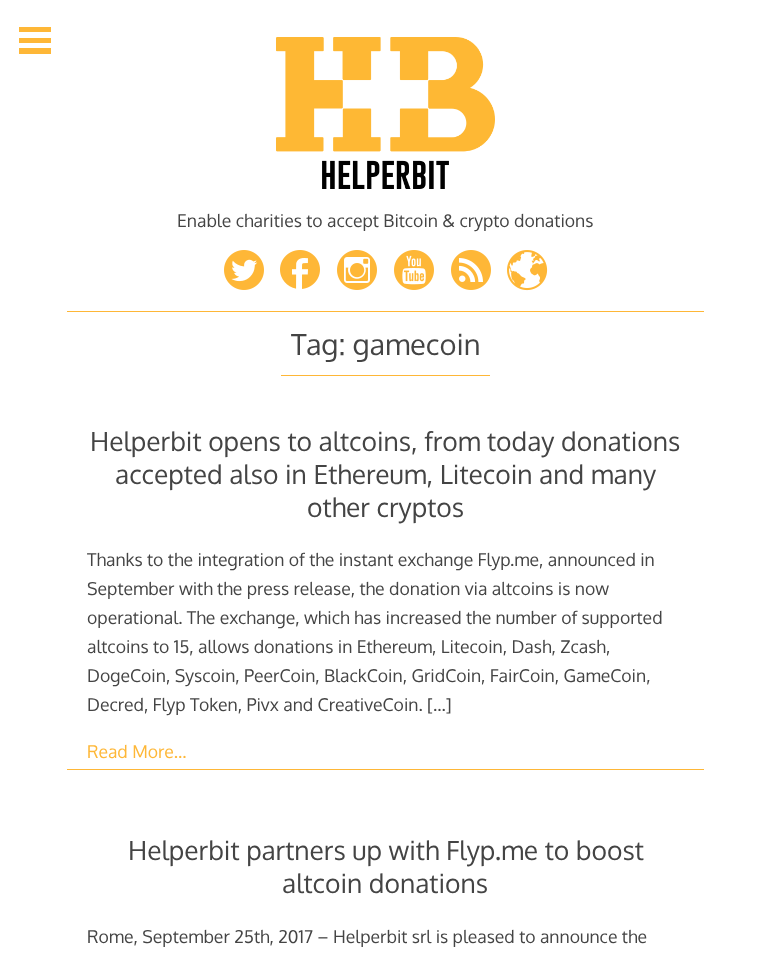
<!DOCTYPE html>
<meta charset="utf-8">
<style>body { margin: 0 } canvas { display: block }</style>
<canvas id="canvas" width="771" height="966"></canvas>
<script type="module">
  const canvas = document.getElementById("canvas");
  const g = canvas.getContext("2d");
  g.miterLimit = 4;
  g.fontKerning = "normal";
  function drawText(s, x, y, [font, color]) {
    g.font = font;
    g.fillStyle = color;
    g.fillText(s, x, y);
  }
  function fillBox(x, y, w, h, color) {
    g.fillStyle = color;
    g.fillRect(x, y, w, h);
  }
  async function drawPicture(src, x, y, w, h) {
    const img = new Image();
    img.src = src;
    await img.decode();
    g.drawImage(img, x, y, w, h);
  }

  const s1 = ["17.6px Oxygen", "#444444"];
  const s2 = ["29px Oxygen", "#444444"];
  const s3 = ["26.4px Oxygen", "#444444"];
  const s4 = ["17.6px Oxygen", "#FEB737"];

  fillBox(0, 0, 771, 966, "#FFFFFF");
  fillBox(19, 27, 32, 5, "#FEB737");
  fillBox(19, 38, 32, 5, "#FEB737");
  fillBox(19, 48, 32, 6, "#FEB737");
  fillBox(67, 311, 637, 1, "#FEB737");
  await drawPicture("pic1.png", 276, 37, 219, 152);
  drawText("Enable charities to accept Bitcoin & crypto donations", 177, 227, s1);
  await drawPicture("pic2.png", 224, 250, 40, 40);
  await drawPicture("pic3.png", 280, 250, 40, 39);
  await drawPicture("pic4.png", 337, 250, 40, 40);
  await drawPicture("pic5.png", 394, 250, 40, 40);
  await drawPicture("pic6.png", 451, 250, 40, 40);
  await drawPicture("pic7.png", 507, 250, 41, 41);
  fillBox(281, 375, 209, 1, "#FEB737");
  drawText("Tag: gamecoin", 291, 355, s2);
  drawText("Helperbit opens to altcoins, from today donations", 90, 451, s3);
  drawText("accepted also in Ethereum, Litecoin and many", 115, 484, s3);
  drawText("other cryptos", 307, 517, s3);
  drawText("Thanks to the integration of the instant exchange Flyp.me, announced in", 87, 566, s1);
  drawText("September with the press release, the donation via altcoins is now", 87, 595, s1);
  drawText("operational. The exchange, which has increased the number of supported", 87, 624, s1);
  drawText("altcoins to 15, allows donations in Ethereum, Litecoin, Dash, Zcash,", 87, 653, s1);
  drawText("DogeCoin, Syscoin, PeerCoin, BlackCoin, GridCoin, FairCoin, GameCoin,", 87, 682, s1);
  drawText("Decred, Flyp Token, Pivx and CreativeCoin. […]", 87, 711, s1);
  fillBox(67, 769, 637, 1, "#FEB737");
  drawText("Read More…", 87, 758, s4);
  drawText("Helperbit partners up with Flyp.me to boost", 128, 860, s3);
  drawText("altcoin donations", 282, 893, s3);
  drawText("Rome, September 25th, 2017 – Helperbit srl is pleased to announce the", 87, 943, s1);
</script>
